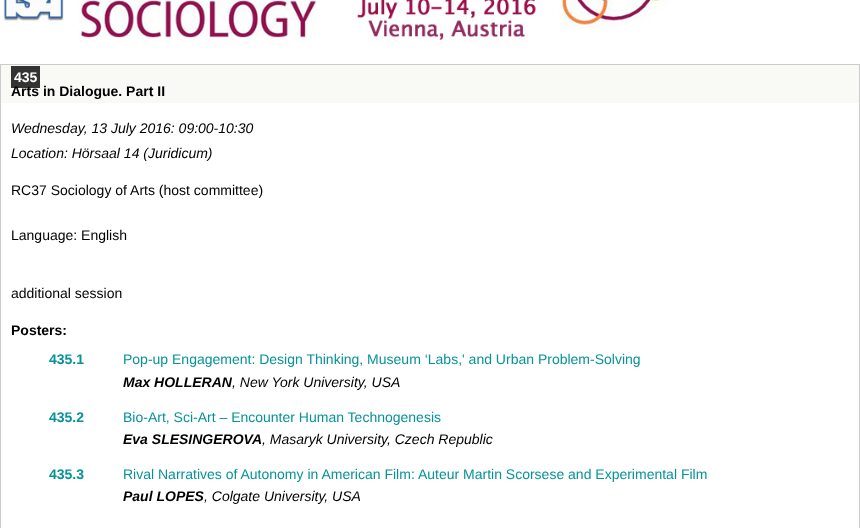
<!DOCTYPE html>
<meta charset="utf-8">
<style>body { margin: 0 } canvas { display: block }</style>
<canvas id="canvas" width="860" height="528"></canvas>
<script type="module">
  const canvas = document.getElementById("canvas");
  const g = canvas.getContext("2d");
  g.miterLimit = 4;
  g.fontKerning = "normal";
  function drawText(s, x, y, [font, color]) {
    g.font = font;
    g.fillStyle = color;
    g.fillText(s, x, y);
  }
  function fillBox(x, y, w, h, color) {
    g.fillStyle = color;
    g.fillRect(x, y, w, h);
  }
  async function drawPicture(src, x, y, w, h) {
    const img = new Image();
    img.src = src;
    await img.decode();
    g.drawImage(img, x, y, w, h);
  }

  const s1 = ["bold 14px Liberation Sans", "#FFFFFF"];
  const s2 = ["bold 14px Liberation Sans", "#000000"];
  const s3 = ["italic 14px Liberation Sans", "#000000"];
  const s4 = ["14px Liberation Sans", "#000000"];
  const s5 = ["bold 14px Liberation Sans", "#079299"];
  const s6 = ["14px Liberation Sans", "#079299"];
  const s7 = ["italic bold 14px Liberation Sans", "#000000"];

  fillBox(0, 0, 860, 528, "#FFFFFF");
  await drawPicture("pic1.png", 3, 0, 670, 43);
  g.strokeStyle = "#CCCCCC";
  g.strokeRect(0.5, 64.5, 859, 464);
  fillBox(1, 65, 858, 38, "#F9F9F5");
  fillBox(11, 66, 29, 22, "#333333");
  drawText("435", 14, 82, s1);
  drawText("Arts in Dialogue. Part II", 11, 96, s2);
  drawText("Wednesday, 13 July 2016: 09:00-10:30", 11, 133, s3);
  drawText("Location: Hörsaal 14 (Juridicum)", 11, 158, s3);
  drawText("RC37 Sociology of Arts (host committee)", 11, 195, s4);
  drawText("Language: English", 11, 240, s4);
  drawText("additional session", 11, 298, s4);
  drawText("Posters:", 11, 335, s2);
  drawText("435.1", 49, 364, s5);
  drawText("Pop-up Engagement: Design Thinking, Museum ‘Labs,' and Urban Problem-Solving", 123, 364, s6);
  drawText("Max HOLLERAN", 123, 387, s7);
  drawText(", New York University, USA", 232, 387, s3);
  drawText("435.2", 49, 422, s5);
  drawText("Bio-Art, Sci-Art – Encounter Human Technogenesis", 123, 422, s6);
  drawText("Eva SLESINGEROVA", 123, 444, s7);
  drawText(", Masaryk University, Czech Republic", 262, 444, s3);
  drawText("435.3", 49, 479, s5);
  drawText("Rival Narratives of Autonomy in American Film: Auteur Martin Scorsese and Experimental Film", 123, 479, s6);
  drawText("Paul LOPES", 123, 501, s7);
  drawText(", Colgate University, USA", 204, 501, s3);
</script>
